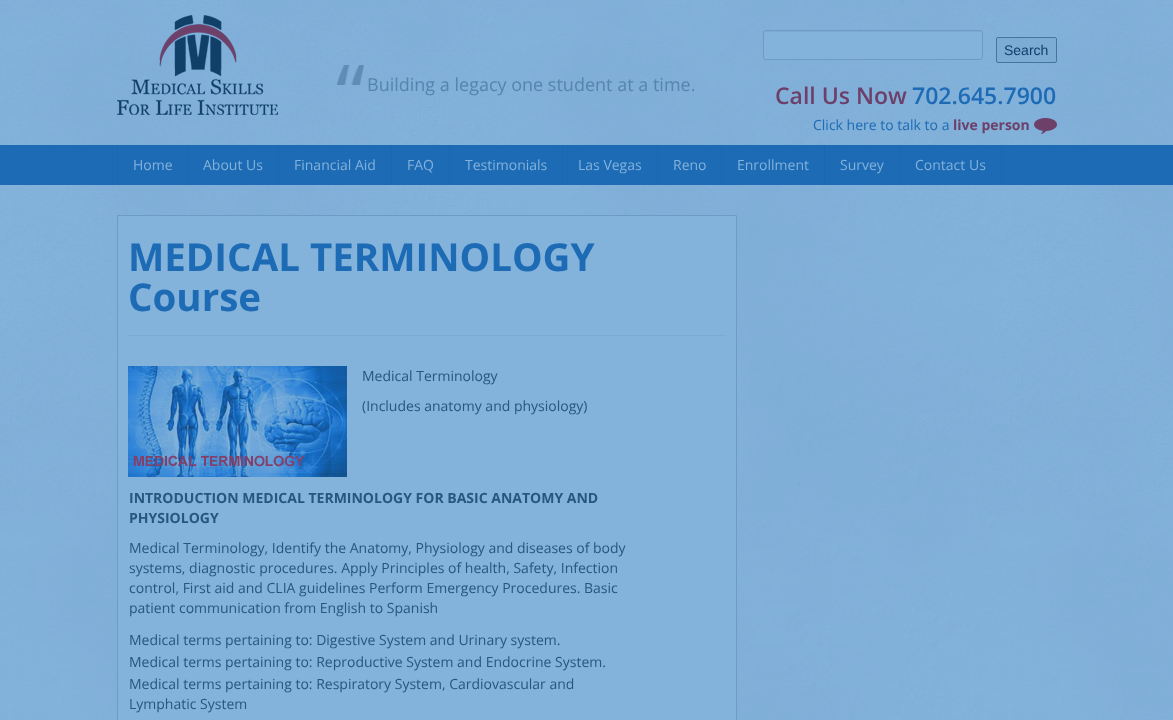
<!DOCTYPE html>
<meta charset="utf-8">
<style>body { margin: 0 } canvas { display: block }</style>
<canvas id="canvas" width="1173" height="720"></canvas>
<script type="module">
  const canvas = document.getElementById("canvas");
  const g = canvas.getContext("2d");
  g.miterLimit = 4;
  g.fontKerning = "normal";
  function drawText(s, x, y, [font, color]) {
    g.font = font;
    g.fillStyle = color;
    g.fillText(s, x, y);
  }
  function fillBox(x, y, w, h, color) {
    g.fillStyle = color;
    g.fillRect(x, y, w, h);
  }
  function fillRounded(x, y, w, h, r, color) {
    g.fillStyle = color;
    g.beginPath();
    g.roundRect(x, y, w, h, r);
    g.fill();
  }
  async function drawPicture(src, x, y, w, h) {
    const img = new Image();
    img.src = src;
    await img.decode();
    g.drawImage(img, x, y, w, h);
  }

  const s1 = ["18px Open Sans", "#5584AD"];
  const s2 = ["14px Liberation Sans", "#113F69"];
  const s3 = ["600 23px Open Sans", "#6C4069"];
  const s4 = ["600 23px Open Sans", "#1D6BB5"];
  const s5 = ["14px Open Sans", "#1D6BB5"];
  const s6 = ["bold 14px Open Sans", "#6C4069"];
  const s7 = ["14px Open Sans", "#83B2DB"];
  const s8 = ["bold 38.5px Open Sans", "#1D6BB5"];
  const s9 = ["14px Open Sans", "#27567F"];
  const s10 = ["bold 14px Open Sans", "#27567F"];

  fillBox(0, 0, 1173, 720, "#FFFFFF");
  await drawPicture("pic1.png", 0, 0, 1173, 720);
  await drawPicture("pic2.png", 117, 15, 161, 100);
  await drawPicture("pic3.png", 337, 65, 27, 20);
  drawText("Building a legacy one student at a time.", 367, 91, s1);
  fillRounded(763, 30, 220, 30, 3, "#83B2DB");
  g.fillStyle = "#7BA9D3";
  g.beginPath();
  g.moveTo(766, 32);
  g.lineTo(980, 32);
  g.bezierCurveTo(981, 32, 982, 33, 982, 34);
  g.bezierCurveTo(982, 33, 982, 31, 980, 31);
  g.lineTo(766, 31);
  g.lineTo(765, 32);
  g.lineTo(764, 34);
  g.bezierCurveTo(764, 33, 765, 32, 766, 32);
  g.closePath();
  g.fill();
  g.beginPath();
  g.roundRect(763.5, 30.5, 219, 29, 2.5);
  g.strokeStyle = "#6C9BC4";
  g.stroke();
  g.fillStyle = "#7CABD4";
  g.beginPath();
  g.roundRect(996.5, 37.5, 60, 25, 1.5);
  g.fill();
  g.strokeStyle = "#46749E";
  g.stroke();
  drawText("Search", 1004, 55, s2);
  drawText("Call Us Now", 775, 104, s3);
  drawText("702.645.7900", 912, 104, s4);
  drawText("Click here to talk to a", 813, 130, s5);
  drawText("live person", 953, 130, s6);
  await drawPicture("pic4.png", 1034, 118, 23, 16);
  fillBox(0, 145, 1173, 40, "#1D6BB5");
  fillBox(187, 145, 1, 40, "#1C67AD");
  fillBox(117, 145, 1, 40, "#1C67AD");
  drawText("Home", 133, 170, s7);
  fillBox(278, 145, 1, 40, "#1C67AD");
  drawText("About Us", 203, 170, s7);
  fillBox(391, 145, 1, 40, "#1C67AD");
  drawText("Financial Aid", 294, 170, s7);
  fillBox(449, 145, 1, 40, "#1C67AD");
  drawText("FAQ", 407, 170, s7);
  fillBox(562, 145, 1, 40, "#1C67AD");
  drawText("Testimonials", 465, 170, s7);
  fillBox(657, 145, 1, 40, "#1C67AD");
  drawText("Las Vegas", 578, 170, s7);
  fillBox(721, 145, 1, 40, "#1C67AD");
  drawText("Reno", 673, 170, s7);
  fillBox(824, 145, 1, 40, "#1C67AD");
  drawText("Enrollment", 737, 170, s7);
  fillBox(899, 145, 1, 40, "#1C67AD");
  drawText("Survey", 840, 170, s7);
  fillBox(1001, 145, 1, 40, "#1C67AD");
  drawText("Contact Us", 915, 170, s7);
  g.beginPath();
  g.rect(117.5, 215.5, 619, 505);
  g.fill();
  g.strokeStyle = "#6C9BC4";
  g.stroke();
  fillBox(128, 335, 598, 1, "#7CAAD4");
  drawText("MEDICAL TERMINOLOGY", 128, 271, s8);
  drawText("Course", 128, 311, s8);
  await drawPicture("pic5.png", 128, 366, 219, 111);
  drawText("Medical Terminology", 362, 381, s9);
  drawText("(Includes anatomy and physiology)", 362, 411, s9);
  drawText("INTRODUCTION MEDICAL TERMINOLOGY FOR BASIC ANATOMY AND", 129, 503, s10);
  drawText("PHYSIOLOGY", 129, 523, s10);
  drawText("Medical Terminology, Identify the Anatomy, Physiology and diseases of body", 129, 553, s9);
  drawText("systems, diagnostic procedures. Apply Principles of health, Safety, Infection", 129, 573, s9);
  drawText("control, First aid and CLIA guidelines Perform Emergency Procedures. Basic", 129, 593, s9);
  drawText("patient communication from English to Spanish", 129, 613, s9);
  drawText("Medical terms pertaining to: Digestive System and Urinary system.", 129, 645, s9);
  drawText("Medical terms pertaining to: Reproductive System and Endocrine System.", 129, 667, s9);
  drawText("Medical terms pertaining to: Respiratory System, Cardiovascular and", 129, 689, s9);
  drawText("Lymphatic System", 129, 709, s9);
</script>
